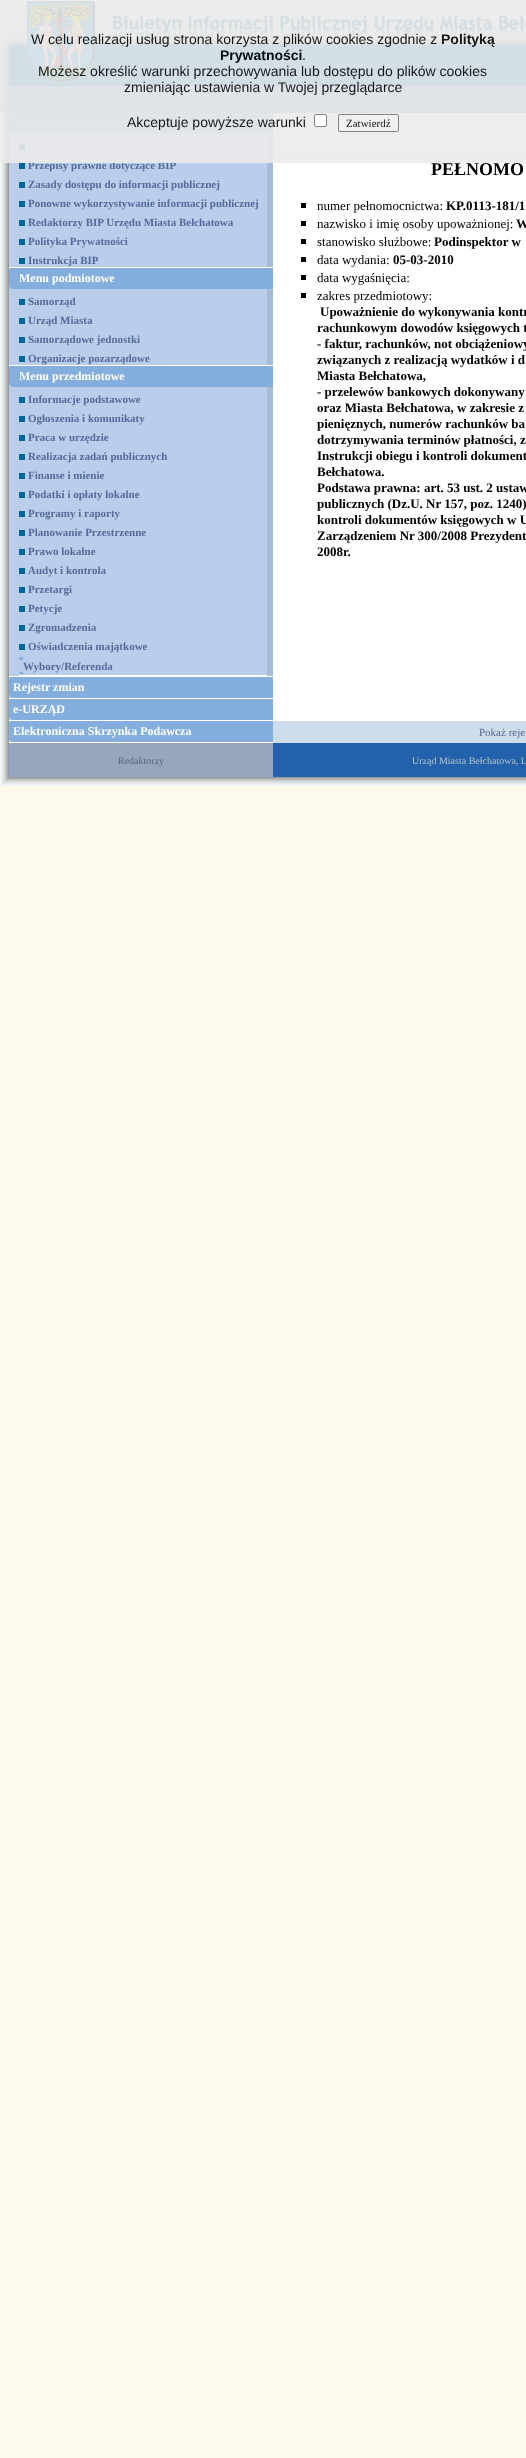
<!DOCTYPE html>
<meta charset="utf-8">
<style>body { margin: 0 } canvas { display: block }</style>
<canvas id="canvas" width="526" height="2458"></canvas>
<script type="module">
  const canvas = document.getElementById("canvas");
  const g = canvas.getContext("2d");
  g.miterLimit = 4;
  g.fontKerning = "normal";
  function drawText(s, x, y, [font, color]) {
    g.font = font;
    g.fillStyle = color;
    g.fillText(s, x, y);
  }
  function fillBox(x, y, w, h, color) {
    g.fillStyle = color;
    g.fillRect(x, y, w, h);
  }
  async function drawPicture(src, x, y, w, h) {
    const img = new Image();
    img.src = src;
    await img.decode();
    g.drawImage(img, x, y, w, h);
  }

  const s1 = ["bold 11px Liberation Serif", "#556A9A"];
  const s2 = ["14px Liberation Sans", "#171717"];
  const s3 = ["bold 14px Liberation Sans", "#171717"];
  const s4 = ["bold 14px Liberation Sans", "#000B12"];
  const s5 = ["14px Liberation Sans", "#000B12"];
  const s6 = ["11px Liberation Serif", "#171717"];
  const s7 = ["bold 12px Liberation Serif", "#FFFFFF"];
  const s8 = ["bold 18px Liberation Serif", "#000000"];
  const s9 = ["13px Liberation Serif", "#000000"];
  const s10 = ["bold 13px Liberation Serif", "#000000"];
  const s11 = ["11px Liberation Serif", "#556A9A"];
  const s12 = ["10px Liberation Serif", "#55667E"];
  const s13 = ["10px Liberation Serif", "#B1C4C4"];

  fillBox(0, 0, 526, 2458, "#FDF9ED");
  await drawPicture("pic1.png", 0, 0, 526, 113);
  await drawPicture("pic2.png", 9, 0, 97, 82);
  await drawPicture("pic3.png", 106, 15, 420, 30);
  await drawPicture("pic4.png", 1, 39, 8, 74);
  fillBox(106, 45, 420, 37, "#006AAF");
  fillBox(9, 82, 517, 4, "#006AAF");
  await drawPicture("pic5.png", 9, 82, 4, 4);
  fillBox(9, 86, 517, 23, "#789DC8");
  await drawPicture("pic6.png", 9, 109, 4, 4);
  fillBox(13, 109, 513, 4, "#789DC8");
  await drawPicture("pic7.png", 0, 113, 9, 664);
  fillBox(267, 134, 6, 542, "#A8BAD5");
  fillBox(9, 113, 264, 3, "#84AEDD");
  await drawPicture("pic8.png", 9, 113, 1, 2);
  fillBox(9, 116, 264, 15, "#84AEDD");
  fillBox(9, 131, 264, 3, "#84AEDD");
  await drawPicture("pic9.png", 9, 131, 4, 3);
  fillBox(9, 134, 258, 4, "#BACEEB");
  fillBox(9, 138, 258, 15, "#BACEEB");
  fillBox(19, 144, 6, 6, "#006699");
  fillBox(9, 153, 258, 4, "#BACEEB");
  fillBox(9, 157, 258, 15, "#BACEEB");
  drawText("Przepisy prawne dotyczące BIP", 28, 169, s1);
  fillBox(273, 113, 253, 608, "#FFFFFF");
  g.beginPath();
  g.moveTo(277, 153.5);
  g.lineTo(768, 153.5);
  g.strokeStyle = "#B0B0B0";
  g.setLineDash([3, 1.98]);
  g.stroke();
  fillBox(0, 1, 526, 162, "rgba(235, 235, 235, 0.9)");
  drawText("W celu realizacji usług strona korzysta z plików cookies zgodnie z", 31, 44, s2);
  drawText("Polityką", 441, 44, s3);
  drawText("Prywatności", 220, 60, s4);
  drawText(".", 302, 60, s5);
  drawText("Możesz określić warunki przechowywania lub dostępu do plików cookies", 38, 76, s2);
  drawText("zmieniając ustawienia w Twojej przeglądarce", 124, 92, s2);
  drawText("Akceptuje powyższe warunki", 127, 127, s2);
  g.fillStyle = "#FFFFFF";
  g.beginPath();
  g.roundRect(314.5, 114.5, 12, 12, 1.5);
  g.fill();
  g.strokeStyle = "#848484";
  g.setLineDash([]);
  g.stroke();
  g.fillStyle = "#F1F1F1";
  g.beginPath();
  g.roundRect(338.5, 114.5, 60, 17, 1.5);
  g.fill();
  g.stroke();
  drawText("Zatwierdź", 346, 127, s6);
  fillBox(19, 163, 6, 6, "#006699");
  fillBox(9, 172, 258, 4, "#BACEEB");
  fillBox(9, 176, 258, 15, "#BACEEB");
  fillBox(19, 182, 6, 6, "#006699");
  drawText("Zasady dostępu do informacji publicznej", 28, 188, s1);
  fillBox(9, 191, 258, 4, "#BACEEB");
  fillBox(9, 195, 258, 15, "#BACEEB");
  fillBox(19, 201, 6, 6, "#006699");
  drawText("Ponowne wykorzystywanie informacji publicznej", 28, 207, s1);
  fillBox(9, 210, 258, 4, "#BACEEB");
  fillBox(9, 214, 258, 15, "#BACEEB");
  fillBox(19, 220, 6, 6, "#006699");
  drawText("Redaktorzy BIP Urzędu Miasta Bełchatowa", 28, 226, s1);
  fillBox(9, 229, 258, 4, "#BACEEB");
  fillBox(9, 233, 258, 15, "#BACEEB");
  fillBox(19, 239, 6, 6, "#006699");
  drawText("Polityka Prywatności", 28, 245, s1);
  fillBox(9, 248, 258, 4, "#BACEEB");
  fillBox(9, 252, 258, 15, "#BACEEB");
  fillBox(19, 258, 6, 6, "#006699");
  drawText("Instrukcja BIP", 28, 264, s1);
  fillBox(9, 267, 264, 1, "#FFFFFF");
  fillBox(9, 268, 264, 3, "#84AEDD");
  await drawPicture("pic8.png", 9, 268, 1, 2);
  fillBox(9, 271, 264, 15, "#84AEDD");
  drawText("Menu podmiotowe", 19, 282, s7);
  fillBox(9, 286, 264, 3, "#84AEDD");
  await drawPicture("pic9.png", 9, 286, 4, 3);
  fillBox(9, 289, 258, 4, "#BACEEB");
  fillBox(9, 293, 258, 15, "#BACEEB");
  fillBox(19, 299, 6, 6, "#006699");
  drawText("Samorząd", 28, 305, s1);
  fillBox(9, 308, 258, 4, "#BACEEB");
  fillBox(9, 312, 258, 15, "#BACEEB");
  fillBox(19, 318, 6, 6, "#006699");
  drawText("Urząd Miasta", 28, 324, s1);
  fillBox(9, 327, 258, 4, "#BACEEB");
  fillBox(9, 331, 258, 15, "#BACEEB");
  fillBox(19, 337, 6, 6, "#006699");
  drawText("Samorządowe jednostki", 28, 343, s1);
  fillBox(9, 346, 258, 4, "#BACEEB");
  fillBox(9, 350, 258, 15, "#BACEEB");
  fillBox(19, 356, 6, 6, "#006699");
  drawText("Organizacje pozarządowe", 28, 362, s1);
  fillBox(9, 365, 264, 1, "#FFFFFF");
  fillBox(9, 366, 264, 3, "#84AEDD");
  await drawPicture("pic8.png", 9, 366, 1, 2);
  fillBox(9, 369, 264, 15, "#84AEDD");
  drawText("Menu przedmiotowe", 19, 380, s7);
  fillBox(9, 384, 264, 3, "#84AEDD");
  await drawPicture("pic9.png", 9, 384, 4, 3);
  fillBox(9, 387, 258, 4, "#BACEEB");
  fillBox(9, 391, 258, 15, "#BACEEB");
  fillBox(19, 397, 6, 6, "#006699");
  drawText("Informacje podstawowe", 28, 403, s1);
  fillBox(9, 406, 258, 4, "#BACEEB");
  fillBox(9, 410, 258, 15, "#BACEEB");
  fillBox(19, 416, 6, 6, "#006699");
  drawText("Ogłoszenia i komunikaty", 28, 422, s1);
  fillBox(9, 425, 258, 4, "#BACEEB");
  fillBox(9, 429, 258, 15, "#BACEEB");
  fillBox(19, 435, 6, 6, "#006699");
  drawText("Praca w urzędzie", 28, 441, s1);
  fillBox(9, 444, 258, 4, "#BACEEB");
  fillBox(9, 448, 258, 15, "#BACEEB");
  fillBox(19, 454, 6, 6, "#006699");
  drawText("Realizacja zadań publicznych", 28, 460, s1);
  fillBox(9, 463, 258, 4, "#BACEEB");
  fillBox(9, 467, 258, 15, "#BACEEB");
  fillBox(19, 473, 6, 6, "#006699");
  drawText("Finanse i mienie", 28, 479, s1);
  fillBox(9, 482, 258, 4, "#BACEEB");
  fillBox(9, 486, 258, 15, "#BACEEB");
  fillBox(19, 492, 6, 6, "#006699");
  drawText("Podatki i opłaty lokalne", 28, 498, s1);
  fillBox(9, 501, 258, 4, "#BACEEB");
  fillBox(9, 505, 258, 15, "#BACEEB");
  fillBox(19, 511, 6, 6, "#006699");
  drawText("Programy i raporty", 28, 517, s1);
  fillBox(9, 520, 258, 4, "#BACEEB");
  fillBox(9, 524, 258, 15, "#BACEEB");
  fillBox(19, 530, 6, 6, "#006699");
  drawText("Planowanie Przestrzenne", 28, 536, s1);
  fillBox(9, 539, 258, 4, "#BACEEB");
  fillBox(9, 543, 258, 15, "#BACEEB");
  fillBox(19, 549, 6, 6, "#006699");
  drawText("Prawo lokalne", 28, 555, s1);
  fillBox(9, 558, 258, 4, "#BACEEB");
  fillBox(9, 562, 258, 15, "#BACEEB");
  fillBox(19, 568, 6, 6, "#006699");
  drawText("Audyt i kontrola", 28, 574, s1);
  fillBox(9, 577, 258, 4, "#BACEEB");
  fillBox(9, 581, 258, 15, "#BACEEB");
  fillBox(19, 587, 6, 6, "#006699");
  drawText("Przetargi", 28, 593, s1);
  fillBox(9, 596, 258, 4, "#BACEEB");
  fillBox(9, 600, 258, 15, "#BACEEB");
  fillBox(19, 606, 6, 6, "#006699");
  drawText("Petycje", 28, 612, s1);
  fillBox(9, 615, 258, 4, "#BACEEB");
  fillBox(9, 619, 258, 15, "#BACEEB");
  fillBox(19, 625, 6, 6, "#006699");
  drawText("Zgromadzenia", 28, 631, s1);
  fillBox(9, 634, 258, 4, "#BACEEB");
  fillBox(9, 638, 258, 15, "#BACEEB");
  fillBox(19, 644, 6, 6, "#006699");
  drawText("Oświadczenia majątkowe", 28, 650, s1);
  fillBox(9, 653, 258, 4, "#BACEEB");
  fillBox(9, 657, 10, 19, "#BACEEB");
  fillBox(19, 657, 248, 18, "#BACEEB");
  fillBox(19, 657, 4, 3, "#84AEDD");
  drawText("Wybory/Referenda", 23, 670, s1);
  await drawPicture("pic9.png", 19, 672, 4, 3);
  fillBox(19, 675, 248, 1, "#FFFFFF");
  fillBox(9, 676, 264, 1, "#FFFFFF");
  fillBox(9, 677, 264, 3, "#84AEDD");
  await drawPicture("pic8.png", 9, 677, 1, 2);
  fillBox(9, 680, 264, 15, "#84AEDD");
  drawText("Rejestr zmian", 13, 691, s7);
  await drawPicture("pic9.png", 9, 695, 4, 3);
  fillBox(13, 695, 260, 3, "#84AEDD");
  fillBox(9, 698, 264, 1, "#FFFFFF");
  fillBox(9, 699, 264, 3, "#84AEDD");
  await drawPicture("pic8.png", 9, 699, 1, 2);
  fillBox(9, 702, 264, 15, "#84AEDD");
  drawText("e-URZĄD", 13, 713, s7);
  await drawPicture("pic9.png", 9, 717, 4, 3);
  fillBox(13, 717, 260, 3, "#84AEDD");
  fillBox(9, 720, 264, 1, "#FFFFFF");
  fillBox(9, 721, 264, 3, "#84AEDD");
  await drawPicture("pic8.png", 9, 721, 1, 2);
  fillBox(9, 724, 264, 15, "#84AEDD");
  drawText("Elektroniczna Skrzynka Podawcza", 13, 735, s7);
  await drawPicture("pic9.png", 9, 739, 4, 3);
  fillBox(13, 739, 260, 3, "#84AEDD");
  fillBox(9, 742, 264, 1, "#FFFFFF");
  drawText("PEŁNOMO", 431, 175, s8);
  fillBox(301, 203, 5, 5, "#000000");
  drawText("numer pełnomocnictwa:", 317, 210, s9);
  drawText("KP.0113-181/1", 446, 210, s10);
  fillBox(301, 221, 5, 5, "#000000");
  drawText("nazwisko i imię osoby upoważnionej:", 317, 228, s9);
  drawText("W", 516, 228, s10);
  fillBox(301, 239, 5, 5, "#000000");
  drawText("stanowisko służbowe:", 317, 246, s9);
  drawText("Podinspektor w", 434, 246, s10);
  fillBox(301, 257, 5, 5, "#000000");
  drawText("data wydania:", 317, 264, s9);
  drawText("05-03-2010", 393, 264, s10);
  fillBox(301, 275, 5, 5, "#000000");
  drawText("data wygaśnięcia:", 317, 282, s9);
  fillBox(301, 293, 5, 5, "#000000");
  drawText("zakres przedmiotowy:", 317, 300, s9);
  drawText("Upoważnienie do wykonywania kontr", 320, 316, s10);
  drawText("rachunkowym dowodów księgowych t", 317, 332, s10);
  drawText("- faktur, rachunków, not obciążeniowy", 317, 348, s10);
  drawText("związanych z realizacją wydatków i d", 317, 364, s10);
  drawText("Miasta Bełchatowa,", 317, 380, s10);
  drawText("- przelewów bankowych dokonywany", 317, 396, s10);
  drawText("oraz Miasta Bełchatowa, w zakresie z", 317, 412, s10);
  drawText("pienięznych, numerów rachunków ba", 317, 428, s10);
  drawText("dotrzymywania terminów płatności, z", 317, 444, s10);
  drawText("Instrukcji obiegu i kontroli dokument", 317, 460, s10);
  drawText("Bełchatowa.", 317, 476, s10);
  drawText("Podstawa prawna: art. 53 ust. 2 ustaw", 317, 492, s10);
  drawText("publicznych (Dz.U. Nr 157, poz. 1240)", 317, 508, s10);
  drawText("kontroli dokumentów księgowych w U", 317, 524, s10);
  drawText("Zarządzeniem Nr 300/2008 Prezydent", 317, 540, s10);
  drawText("2008r.", 317, 556, s10);
  fillBox(273, 721, 253, 22, "#CEDDEB");
  drawText("Pokaż reje", 479, 736, s11);
  fillBox(9, 743, 264, 34, "#95A6BE");
  drawText("Redaktorzy", 118, 764, s12);
  fillBox(273, 743, 253, 34, "#2461AD");
  drawText("Urząd Miasta Bełchatowa, L", 412, 764, s13);
  await drawPicture("pic10.png", 0, 777, 9, 9);
  await drawPicture("pic11.png", 9, 777, 517, 9);
</script>
